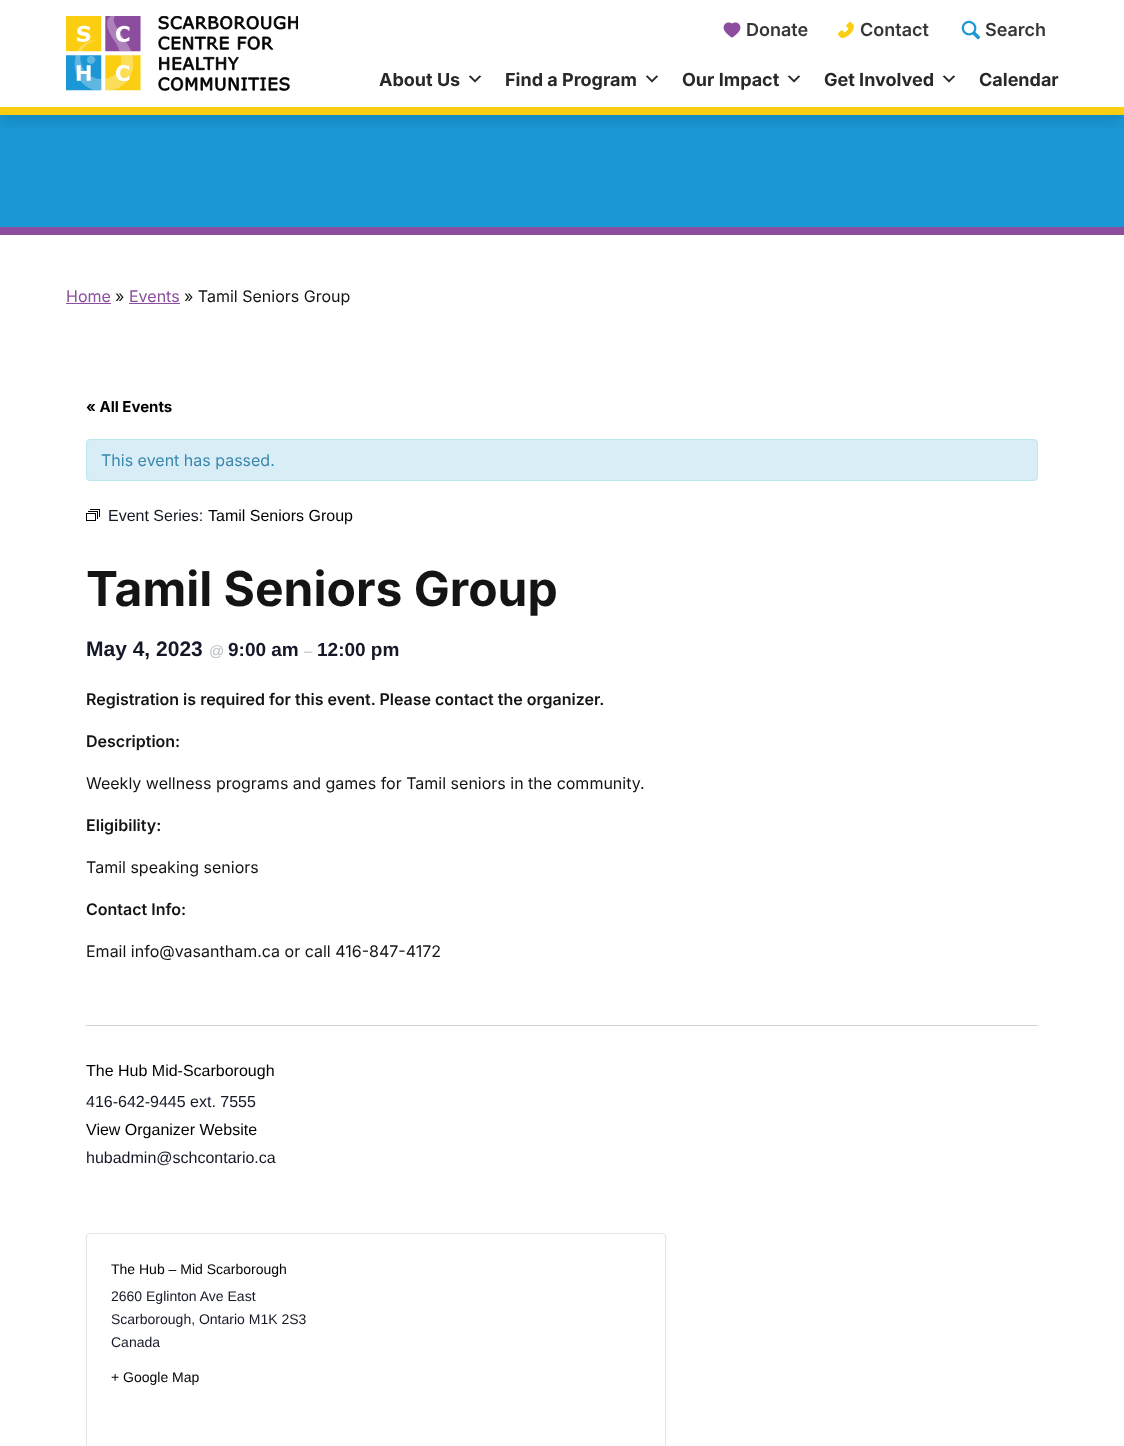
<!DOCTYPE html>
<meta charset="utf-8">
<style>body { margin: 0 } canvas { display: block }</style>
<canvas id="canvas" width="1124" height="1446"></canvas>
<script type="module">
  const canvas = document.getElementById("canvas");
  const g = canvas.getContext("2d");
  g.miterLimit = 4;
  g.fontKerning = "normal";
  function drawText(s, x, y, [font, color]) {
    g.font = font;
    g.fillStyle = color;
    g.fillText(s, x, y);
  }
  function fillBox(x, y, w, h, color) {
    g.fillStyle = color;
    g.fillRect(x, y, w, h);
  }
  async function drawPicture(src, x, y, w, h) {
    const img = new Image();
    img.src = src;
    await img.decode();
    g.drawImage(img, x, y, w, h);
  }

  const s1 = ["600 18px Inter", "#353535"];
  const s2 = ["bold 18px Inter", "#282828"];
  const s3 = ["16px Inter", "#8C4D9E"];
  const s4 = ["16px Inter", "#141414"];
  const s5 = ["bold 15px Inter", "#000000"];
  const s6 = ["16px Inter", "#3A87AD"];
  const s7 = ["16px Liberation Sans", "#141827"];
  const s8 = ["16px Liberation Sans", "#000000"];
  const s9 = ["bold 48px Inter", "#141414"];
  const s10 = ["bold 21px Liberation Sans", "#141827"];
  const s11 = ["15px Liberation Sans", "#B9BEC2"];
  const s12 = ["bold 19px Liberation Sans", "#141827"];
  const s13 = ["600 16px Inter", "#141414"];
  const s14 = ["14px Liberation Sans", "#000000"];
  const s15 = ["14px Liberation Sans", "#141827"];

  fillBox(0, 0, 1124, 1446, "#FFFFFF");
  fillBox(0, 115, 1124, 112, "#1A97D4");
  g.save();
  g.beginPath();
  g.rect(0, 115, 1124, 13);
  g.clip();
  g.fillStyle = "rgba(0, 0, 0, 0.1)";
  g.filter = "blur(7.5px)";
  g.beginPath();
  g.rect(3, 13, 1118, 109);
  g.fill();
  g.filter = "none";
  g.restore();
  await drawPicture("pic1.png", 66, 16, 232, 75);
  await drawPicture("pic2.png", 723, 22, 18, 16);
  drawText("Donate", 746, 36, s1);
  await drawPicture("pic3.png", 838, 22, 16, 16);
  drawText("Contact", 860, 36, s1);
  await drawPicture("pic4.png", 961, 20, 20, 20);
  drawText("Search", 985, 36, s1);
  drawText("About Us", 379, 86, s2);
  await drawPicture("pic5.png", 468, 75, 14, 8);
  drawText("Find a Program", 505, 86, s2);
  await drawPicture("pic5.png", 645, 75, 14, 8);
  drawText("Our Impact", 682, 86, s2);
  await drawPicture("pic5.png", 787, 75, 14, 8);
  drawText("Get Involved", 824, 86, s2);
  await drawPicture("pic5.png", 942, 75, 14, 8);
  drawText("Calendar", 979, 86, s2);
  fillBox(0, 107, 1124, 8, "#FBCE11");
  fillBox(0, 227, 1124, 8, "#8C4D9E");
  drawText("Home", 66, 302, s3);
  fillBox(66, 303, 45, 1, "#8C4D9E");
  drawText("»", 115, 302, s4);
  drawText("Events", 129, 302, s3);
  fillBox(129, 303, 51, 1, "#8C4D9E");
  drawText("» Tamil Seniors Group", 184, 302, s4);
  drawText("« All Events", 86, 412, s5);
  g.fillStyle = "#D9EDF7";
  g.beginPath();
  g.roundRect(86.5, 439.5, 951, 41, 3.5);
  g.fill();
  g.strokeStyle = "#BCE8F1";
  g.stroke();
  drawText("This event has passed.", 101, 466, s6);
  await drawPicture("pic6.png", 86, 509, 14, 12);
  drawText("Event Series:", 108, 521, s7);
  drawText("Tamil Seniors Group", 208, 521, s8);
  drawText("Tamil Seniors Group", 86, 606, s9);
  drawText("May 4, 2023", 86, 656, s10);
  drawText("@", 209, 656, s11);
  drawText("9:00 am", 228, 656, s12);
  drawText("–", 304, 656, s11);
  drawText("12:00 pm", 317, 656, s12);
  drawText("Registration is required for this event. Please contact the organizer.", 86, 705, s13);
  drawText("Description:", 86, 747, s13);
  drawText("Weekly wellness programs and games for Tamil seniors in the community.", 86, 789, s4);
  drawText("Eligibility:", 86, 831, s13);
  drawText("Tamil speaking seniors", 86, 873, s4);
  drawText("Contact Info:", 86, 915, s13);
  drawText("Email info@vasantham.ca or call 416-847-4172", 86, 957, s4);
  fillBox(86, 1025, 952, 1, "#D5D5D5");
  drawText("The Hub Mid-Scarborough", 86, 1076, s8);
  drawText("416-642-9445 ext. 7555", 86, 1107, s7);
  drawText("View Organizer Website", 86, 1135, s8);
  drawText("hubadmin@schcontario.ca", 86, 1163, s7);
  g.beginPath();
  g.roundRect(86.5, 1233.5, 579, 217, 3.5);
  g.strokeStyle = "#E4E4E4";
  g.stroke();
  drawText("The Hub – Mid Scarborough", 111, 1274, s14);
  drawText("2660 Eglinton Ave East", 111, 1301, s15);
  drawText("Scarborough, Ontario M1K 2S3", 111, 1324, s15);
  drawText("Canada", 111, 1347, s15);
  drawText("+ Google Map", 111, 1382, s14);
</script>
